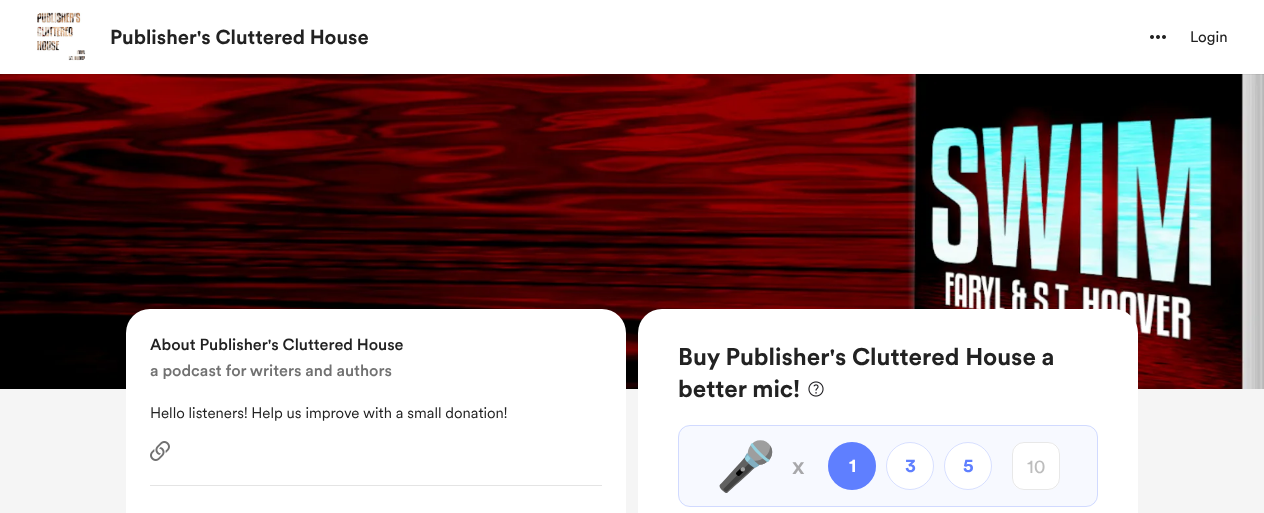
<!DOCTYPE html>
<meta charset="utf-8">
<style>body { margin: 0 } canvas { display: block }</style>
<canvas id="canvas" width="1264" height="513"></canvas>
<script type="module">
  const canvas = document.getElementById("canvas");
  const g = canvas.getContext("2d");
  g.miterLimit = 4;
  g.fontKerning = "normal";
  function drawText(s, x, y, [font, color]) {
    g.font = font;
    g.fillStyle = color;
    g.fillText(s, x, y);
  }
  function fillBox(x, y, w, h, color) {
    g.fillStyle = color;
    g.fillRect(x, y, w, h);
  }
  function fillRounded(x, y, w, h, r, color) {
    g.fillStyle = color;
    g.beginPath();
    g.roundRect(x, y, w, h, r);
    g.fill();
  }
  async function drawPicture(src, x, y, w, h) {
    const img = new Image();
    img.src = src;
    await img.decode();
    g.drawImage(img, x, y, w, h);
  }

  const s1 = ["bold 20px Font", "#222222"];
  const s2 = ["15px Font", "#222222"];
  const s3 = ["500 16px Font", "#222222"];
  const s4 = ["500 16px Font", "#717171"];
  const s5 = ["15px 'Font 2'", "#222222"];
  const s6 = ["bold 24px Font", "#222222"];
  const s7 = ["48px Noto Color Emoji", "#000000"];
  const s8 = ["500 24px Font", "#A7A7AA"];
  const s9 = ["bold 19px Font", "#FFFFFF"];
  const s10 = ["bold 19px Font", "#5F7FFF"];
  const s11 = ["19px Font", "#BDBDBD"];

  fillBox(0, 0, 1264, 513, "#FFFFFF");
  await drawPicture("pic4.png", 0, 74, 1264, 315);
  g.save();
  g.beginPath();
  g.rect(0, 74, 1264, 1);
  g.clip();
  g.fillStyle = "rgba(0, 0, 0, 0.06)";
  g.filter = "blur(0.5px)";
  g.beginPath();
  g.rect(0, 1, 1264, 74);
  g.fill();
  g.filter = "none";
  g.restore();
  await drawPicture("pic1.png", 37, 12, 49, 49);
  await drawPicture("pic2.png", 37, 13, 48, 47);
  drawText("Publisher's Cluttered House", 110, 44, s1);
  await drawPicture("pic3.png", 1150, 35, 16, 4);
  drawText("Login", 1190, 42, s2);
  fillBox(0, 389, 1264, 124, "#F5F5F5");
  fillRounded(126, 309, 500, 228, 24, "#FFFFFF");
  fillBox(150, 485, 452, 1, "#E4E4E4");
  drawText("About Publisher's Cluttered House", 150, 350, s3);
  drawText("a podcast for writers and authors", 150, 376, s4);
  drawText("Hello listeners! Help us improve with a small donation!", 150, 418, s5);
  await drawPicture("pic5.png", 150, 441, 20, 20);
  fillRounded(638, 309, 500, 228, 24, "#FFFFFF");
  drawText("Buy Publisher's Cluttered House a", 678, 365, s6);
  drawText("better mic!", 678, 397, s6);
  await drawPicture("pic6.png", 808, 381, 16, 16);
  fillRounded(678, 425, 420, 82, 12, "#F7F9FF");
  g.beginPath();
  g.roundRect(678.5, 425.5, 419, 81, 11.5);
  g.strokeStyle = "rgba(95, 127, 255, 0.25)";
  g.stroke();
  drawText("🎤", 716, 483, s7);
  drawText("x", 792, 474, s8);
  g.fillStyle = "#5F7FFF";
  g.beginPath();
  g.arc(852, 466, 24, 0, Math.PI * 2);
  g.fill();
  g.beginPath();
  g.arc(852, 466, 23.5, 0, Math.PI * 2);
  g.stroke();
  drawText("1", 849, 472, s9);
  g.beginPath();
  g.arc(910, 466, 24, 0, Math.PI * 2);
  g.fill();
  g.beginPath();
  g.arc(910, 466, 23.5, 0, Math.PI * 2);
  g.stroke();
  drawText("3", 905, 472, s10);
  g.fillStyle = "#FFFFFF";
  g.beginPath();
  g.arc(968, 466, 24, 0, Math.PI * 2);
  g.fill();
  g.beginPath();
  g.arc(968, 466, 23.5, 0, Math.PI * 2);
  g.stroke();
  drawText("5", 963, 472, s10);
  fillRounded(1012, 442, 48, 48, 12, "#FFFFFF");
  g.beginPath();
  g.roundRect(1012.5, 442.5, 47, 47, 11.5);
  g.strokeStyle = "rgba(34, 34, 34, 0.1)";
  g.stroke();
  drawText("10", 1027, 473, s11);
</script>
